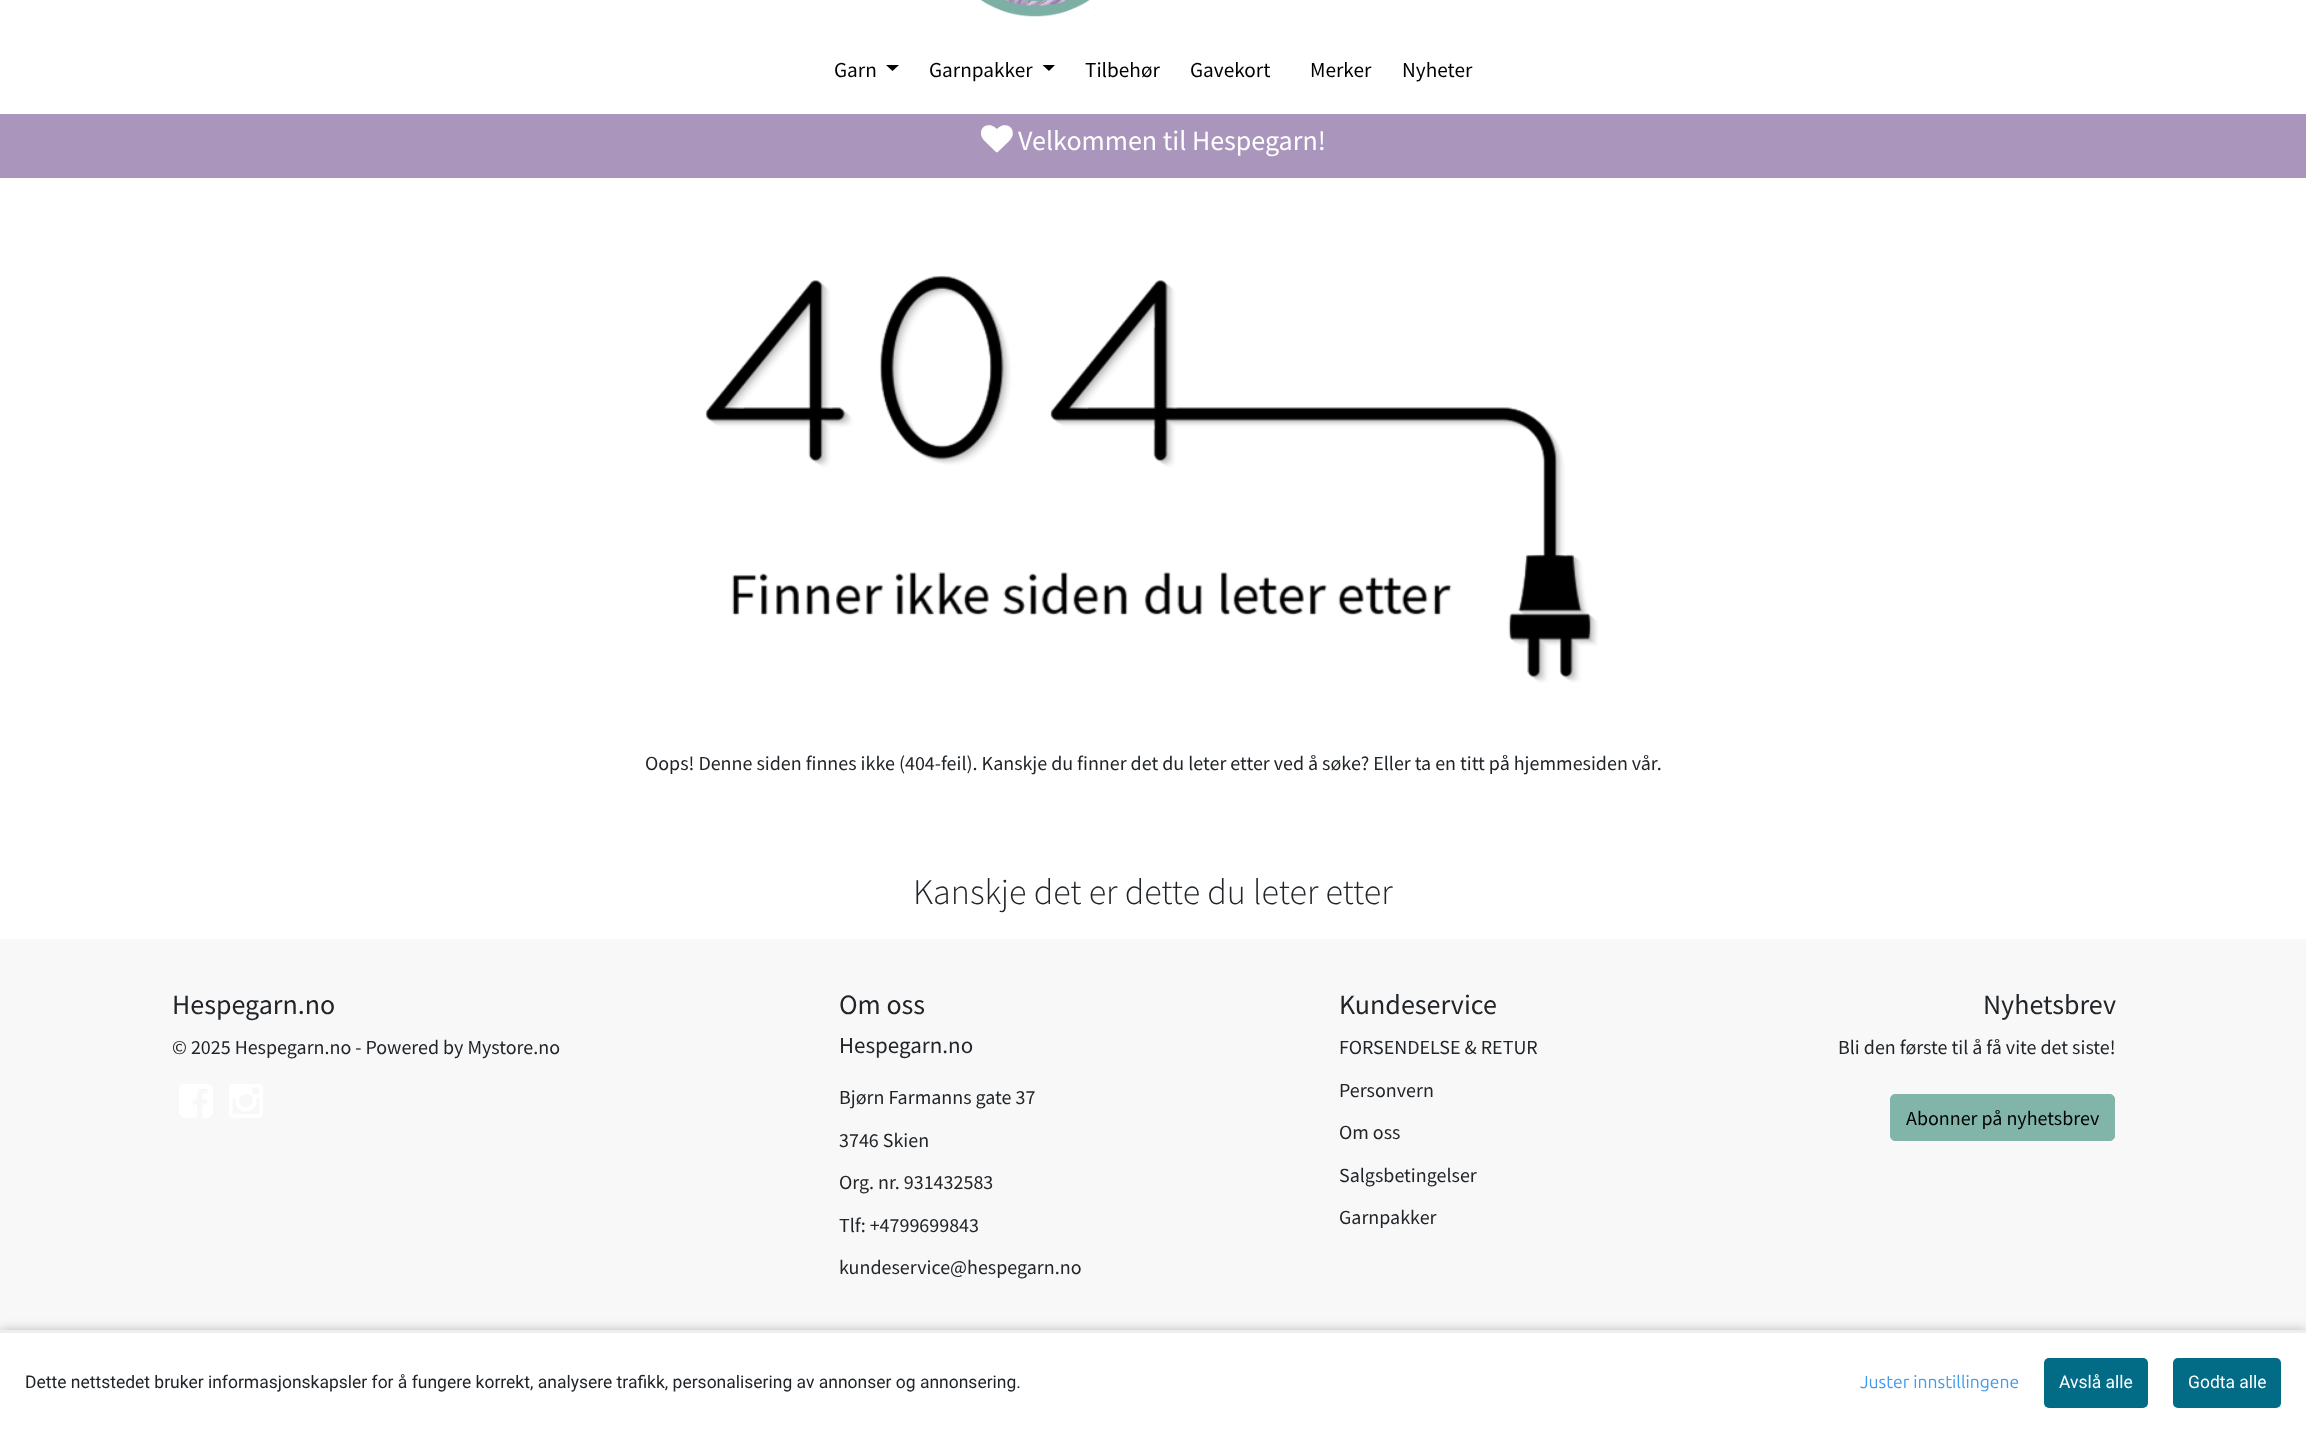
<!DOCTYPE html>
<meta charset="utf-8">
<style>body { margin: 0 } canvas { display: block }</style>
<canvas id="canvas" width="2306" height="1432"></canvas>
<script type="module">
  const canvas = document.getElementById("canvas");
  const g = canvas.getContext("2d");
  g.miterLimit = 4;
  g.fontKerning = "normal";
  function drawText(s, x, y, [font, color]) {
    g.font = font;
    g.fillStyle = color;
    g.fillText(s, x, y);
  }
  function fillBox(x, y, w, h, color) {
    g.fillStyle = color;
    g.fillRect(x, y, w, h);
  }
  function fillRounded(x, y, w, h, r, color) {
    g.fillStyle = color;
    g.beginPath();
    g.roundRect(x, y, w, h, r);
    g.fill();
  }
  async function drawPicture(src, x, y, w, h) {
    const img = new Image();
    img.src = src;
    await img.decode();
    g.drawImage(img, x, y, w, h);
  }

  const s1 = ["21.25px Source Sans Pro", "#000000"];
  const s2 = ["28px Source Sans Pro", "#FFFFFF"];
  const s3 = ["20px Source Sans Pro", "#212529"];
  const s4 = ["300 36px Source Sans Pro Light", "#212529"];
  const s5 = ["28px Source Sans Pro", "#212529"];
  const s6 = ["23px Source Sans Pro", "#212529"];
  const s7 = ["20px Source Sans Pro", "#000000"];
  const s8 = ["17.5px Roboto", "#212529"];
  const s9 = ["17.5px Ubuntu", "#409AEF"];
  const s10 = ["17.5px Roboto", "#FFFFFF"];

  fillBox(0, 0, 2306, 1432, "#FFFFFF");
  await drawPicture("pic1.png", 980, 0, 117, 17);
  drawText("Garn", 834, 77, s1);
  g.beginPath();
  g.moveTo(886, 65);
  g.lineTo(899, 65);
  g.lineTo(892.5, 71);
  g.closePath();
  g.fill();
  drawText("Garnpakker", 929, 77, s1);
  g.beginPath();
  g.moveTo(1042.5, 65);
  g.lineTo(1055, 65);
  g.lineTo(1049, 71);
  g.closePath();
  g.fill();
  drawText("Tilbehør", 1085, 77, s1);
  drawText("Gavekort", 1190, 77, s1);
  drawText("Merker", 1310, 77, s1);
  drawText("Nyheter", 1402, 77, s1);
  fillBox(0, 114, 2306, 64, "#AA95BC");
  await drawPicture("pic2.png", 980, 125, 33, 28);
  drawText("Velkommen til Hespegarn!", 1018, 150, s2);
  await drawPicture("pic3.png", 705, 275, 893, 408);
  drawText("Oops! Denne siden finnes ikke (404-feil). Kanskje du finner det du leter etter ved å søke? Eller ta en titt på hjemmesiden vår.", 645, 770, s3);
  drawText("Kanskje det er dette du leter etter", 913, 904, s4);
  fillBox(0, 939, 2306, 391, "#F8F8F8");
  drawText("Hespegarn.no", 172, 1014, s5);
  drawText("© 2025 Hespegarn.no - Powered by Mystore.no", 172, 1054, s3);
  await drawPicture("pic4.png", 179, 1084, 34, 34);
  await drawPicture("pic5.png", 229, 1084, 34, 34);
  drawText("Om oss", 839, 1014, s5);
  drawText("Hespegarn.no", 839, 1053, s6);
  drawText("Bjørn Farmanns gate 37", 839, 1104, s3);
  drawText("3746 Skien", 839, 1147, s3);
  drawText("Org. nr. 931432583", 839, 1189, s3);
  drawText("Tlf: +4799699843", 839, 1232, s3);
  drawText("kundeservice@hespegarn.no", 839, 1274, s3);
  drawText("Kundeservice", 1339, 1014, s5);
  drawText("FORSENDELSE & RETUR", 1339, 1054, s3);
  drawText("Personvern", 1339, 1097, s3);
  drawText("Om oss", 1339, 1139, s3);
  drawText("Salgsbetingelser", 1339, 1182, s3);
  drawText("Garnpakker", 1339, 1224, s3);
  drawText("Nyhetsbrev", 1983, 1014, s5);
  drawText("Bli den første til å få vite det siste!", 1838, 1054, s3);
  g.fillStyle = "#81B5AA";
  g.beginPath();
  g.roundRect(1890.5, 1094.5, 224, 46, 4.5);
  g.fill();
  g.strokeStyle = "#81B5AA";
  g.stroke();
  drawText("Abonner på nyhetsbrev", 1906, 1125, s7);
  g.fillStyle = "rgba(0, 0, 0, 0.25)";
  g.filter = "blur(6px)";
  g.beginPath();
  g.rect(0, 1330, 2306, 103);
  g.fill();
  g.filter = "none";
  fillBox(0, 1333, 2306, 99, "#FFFFFF");
  fillBox(0, 1330, 2306, 3, "#EEEEEE");
  drawText("Dette nettstedet bruker informasjonskapsler for å fungere korrekt, analysere trafikk, personalisering av annonser og annonsering.", 25, 1388, s8);
  drawText("Juster innstillingene", 1860, 1388, s9);
  fillRounded(2044, 1358, 104, 50, 5, "#026B85");
  drawText("Avslå alle", 2059, 1388, s10);
  fillRounded(2173, 1358, 108, 50, 5, "#026B85");
  drawText("Godta alle", 2188, 1388, s10);
</script>
